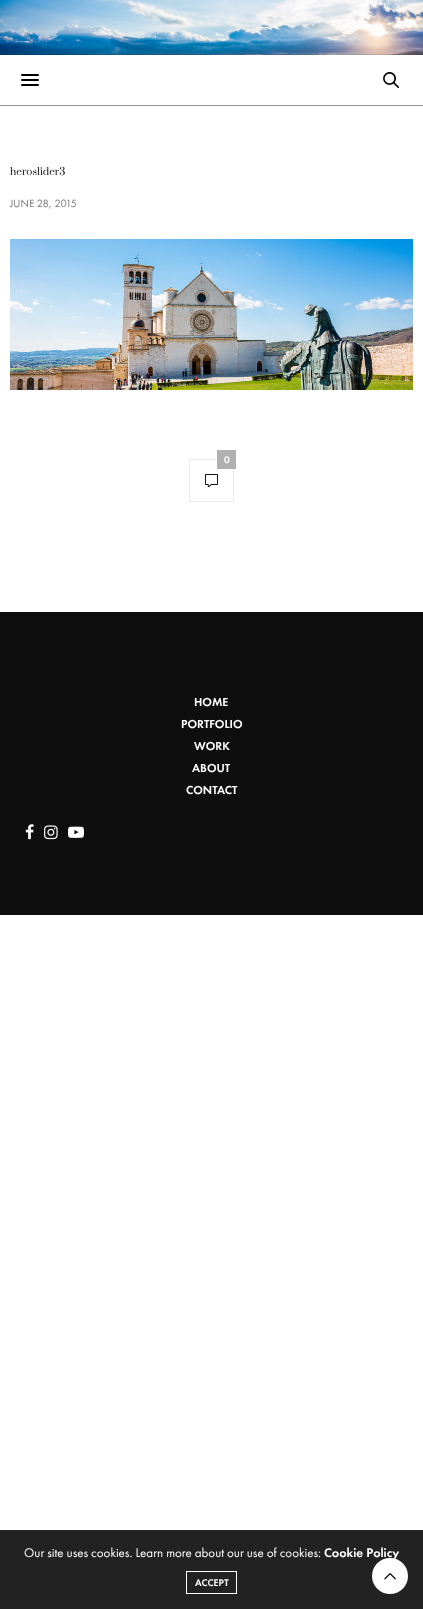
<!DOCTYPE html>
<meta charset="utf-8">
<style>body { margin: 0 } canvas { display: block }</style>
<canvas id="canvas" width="423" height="1609"></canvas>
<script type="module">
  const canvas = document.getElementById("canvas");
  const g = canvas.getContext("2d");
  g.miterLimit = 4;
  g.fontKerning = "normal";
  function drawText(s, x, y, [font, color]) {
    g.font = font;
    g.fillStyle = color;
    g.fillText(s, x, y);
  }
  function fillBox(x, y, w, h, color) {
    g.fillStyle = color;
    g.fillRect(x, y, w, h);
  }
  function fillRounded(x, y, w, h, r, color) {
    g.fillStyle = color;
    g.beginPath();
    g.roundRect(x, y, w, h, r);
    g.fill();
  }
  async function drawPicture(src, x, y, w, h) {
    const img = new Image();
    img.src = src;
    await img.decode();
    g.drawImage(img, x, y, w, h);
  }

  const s1 = ["10px Prata", "#222222"];
  const s2 = ["11px Futura PT", "#767676"];
  const s3 = ["500 10px Futura PT", "#FFFFFF"];
  const s4 = ["500 12px Futura PT", "#FFFFFF"];
  const s5 = ["13px Futura PT", "#FFFFFF"];
  const s6 = ["500 13px Futura PT", "#FFFFFF"];

  fillBox(0, 0, 423, 1609, "#FFFFFF");
  await drawPicture("pic1.png", 0, 0, 423, 55);
  fillBox(0, 54, 423, 1, "rgba(0, 0, 0, 0.1)");
  fillBox(0, 105, 423, 1, "#959595");
  fillRounded(21, 74, 18, 2, 1, "#000000");
  fillRounded(21, 79, 18, 2, 1, "#000000");
  fillRounded(21, 84, 18, 2, 1, "#000000");
  await drawPicture("pic2.png", 383, 72, 16, 16);
  drawText("heroslider3", 10, 175, s1);
  drawText("JUNE 28, 2015", 10, 207, s2);
  await drawPicture("pic3.png", 10, 239, 403, 151);
  g.strokeStyle = "#EAEAEA";
  g.strokeRect(189.5, 459.5, 44, 42);
  fillBox(217, 450, 19, 19, "#B1B1B1");
  fillBox(233, 469, 3, 1, "#FFFFFF");
  fillBox(216, 459, 1, 1, "#FFFFFF");
  drawText("0", 224, 463, s3);
  await drawPicture("pic4.png", 205, 474, 13, 13);
  fillBox(0, 612, 423, 303, "#0E0E0E");
  drawText("HOME", 194, 706, s4);
  drawText("PORTFOLIO", 181, 728, s4);
  drawText("WORK", 194, 750, s4);
  drawText("ABOUT", 192, 772, s4);
  drawText("CONTACT", 186, 794, s4);
  await drawPicture("pic5.png", 25, 824, 9, 16);
  await drawPicture("pic6.png", 44, 825, 14, 15);
  await drawPicture("pic7.png", 68, 826, 16, 12);
  fillBox(0, 1530, 423, 79, "#222222");
  drawText("Our site uses cookies. Learn more about our use of cookies:", 24, 1557, s5);
  drawText("Cookie Policy", 324, 1557, s6);
  g.strokeStyle = "#FFFFFF";
  g.strokeRect(186.5, 1571.5, 50, 22);
  drawText("ACCEPT", 195, 1586, s3);
  g.beginPath();
  g.arc(390, 1576, 18, 0, Math.PI * 2);
  g.fill();
  await drawPicture("pic8.png", 384, 1573, 12, 7);
</script>
